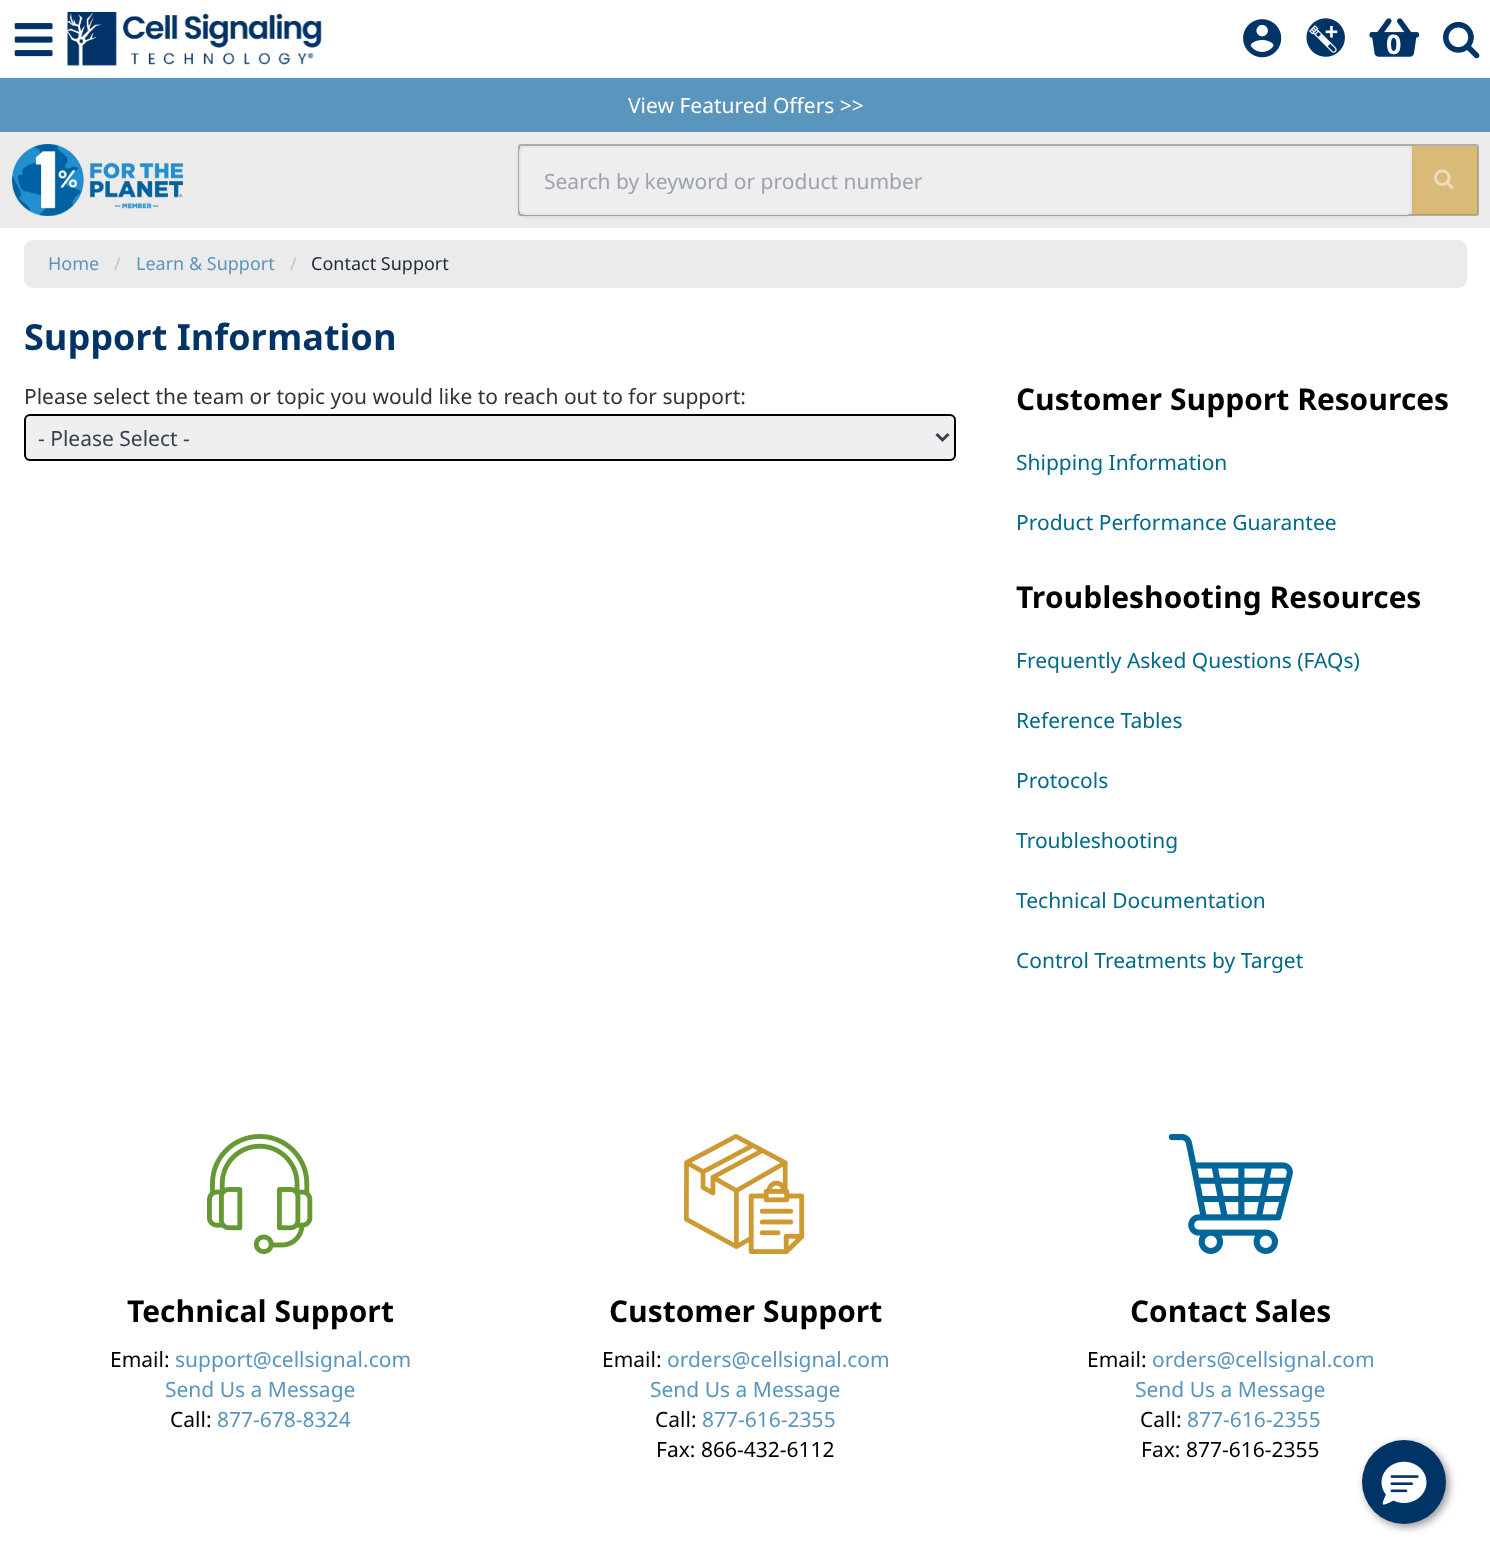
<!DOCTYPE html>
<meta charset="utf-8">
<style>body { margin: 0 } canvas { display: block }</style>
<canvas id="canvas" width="1490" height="1561"></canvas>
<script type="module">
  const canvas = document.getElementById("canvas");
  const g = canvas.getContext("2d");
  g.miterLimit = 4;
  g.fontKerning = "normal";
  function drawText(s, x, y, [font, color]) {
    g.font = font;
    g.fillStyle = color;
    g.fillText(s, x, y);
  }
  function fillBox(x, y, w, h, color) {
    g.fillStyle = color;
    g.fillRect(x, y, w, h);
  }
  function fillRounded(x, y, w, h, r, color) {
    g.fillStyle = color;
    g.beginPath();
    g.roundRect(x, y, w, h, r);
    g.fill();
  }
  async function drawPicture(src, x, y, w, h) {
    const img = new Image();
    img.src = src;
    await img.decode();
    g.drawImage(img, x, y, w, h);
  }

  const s1 = ["bold 27px Noto Sans", "#FFFFFF"];
  const s2 = ["21px Noto Sans", "#FFFFFF"];
  const s3 = ["21px Noto Sans", "#9CA3AF"];
  const s4 = ["18px Noto Sans", "#5A95BD"];
  const s5 = ["18px Noto Sans", "#C2C2C2"];
  const s6 = ["18px Noto Sans", "#1F2937"];
  const s7 = ["bold 36px Noto Sans", "#003366"];
  const s8 = ["21px Noto Sans", "#333333"];
  const s9 = ["21px Noto Sans", "#374151"];
  const s10 = ["bold 30px Noto Sans", "#000000"];
  const s11 = ["21px Noto Sans", "#006986"];
  const s12 = ["21px Noto Sans", "#000000"];
  const s13 = ["21px Noto Sans", "#5A95BD"];

  fillBox(0, 0, 1490, 1561, "#FFFFFF");
  await drawPicture("pic1.png", 14, 23, 39, 34);
  await drawPicture("pic2.png", 67, 12, 255, 54);
  await drawPicture("pic3.png", 1243, 19, 39, 39);
  await drawPicture("pic4.png", 1306, 18, 39, 39);
  await drawPicture("pic5.png", 1369, 18, 50, 39);
  drawText("0", 1386, 54, s1);
  await drawPicture("pic6.png", 1443, 21, 37, 38);
  fillBox(0, 78, 1490, 54, "#5A95BD");
  drawText("View Featured Offers >>", 628, 113, s2);
  fillBox(0, 132, 1490, 96, "#EBEBEB");
  await drawPicture("pic7.png", 12, 144, 171, 72);
  g.beginPath();
  g.roundRect(519, 145, 959, 70, 2);
  g.strokeStyle = "#AFAFAF";
  g.lineWidth = 2;
  g.stroke();
  g.fillStyle = "rgba(0, 0, 0, 0.1)";
  g.filter = "blur(1.5px)";
  g.beginPath();
  g.roundRect(521, 149, 889, 66, 5);
  g.fill();
  g.filter = "none";
  g.filter = "blur(2px)";
  g.beginPath();
  g.roundRect(519, 147, 893, 69, 6);
  g.fill();
  g.filter = "none";
  g.fillStyle = "#EEEEEE";
  g.beginPath();
  g.roundRect(520, 147, 891, 67, 5);
  g.fill();
  g.strokeStyle = "#E5E7EB";
  g.stroke();
  drawText("Search by keyword or product number", 544, 189, s3);
  g.fillStyle = "rgba(202, 138, 4, 0.5)";
  g.beginPath();
  g.roundRect(1412, 146, 66, 69, [0, 3, 3, 0]);
  g.fill();
  await drawPicture("pic8.png", 1434, 169, 20, 20);
  fillRounded(24, 240, 1443, 48, 9, "#EBEBEB");
  drawText("Home", 48, 270, s4);
  drawText("/", 114, 270, s5);
  drawText("Learn & Support", 136, 270, s4);
  drawText("/", 290, 270, s5);
  drawText("Contact Support", 311, 270, s6);
  drawText("Support Information", 24, 350, s7);
  drawText("Please select the team or topic you would like to reach out to for support:", 24, 404, s8);
  g.fillStyle = "#EFEFEF";
  g.beginPath();
  g.roundRect(25, 415, 930, 45, 5);
  g.fill();
  g.strokeStyle = "#000000";
  g.stroke();
  g.beginPath();
  g.moveTo(936.5, 434);
  g.lineTo(942.5, 440);
  g.lineTo(948.5, 434);
  g.strokeStyle = "#374151";
  g.lineWidth = 3;
  g.stroke();
  drawText("- Please Select -", 38, 446, s9);
  drawText("Customer Support Resources", 1016, 410, s10);
  drawText("Shipping Information", 1016, 470, s11);
  drawText("Product Performance Guarantee", 1016, 530, s11);
  drawText("Troubleshooting Resources", 1016, 608, s10);
  drawText("Frequently Asked Questions (FAQs)", 1016, 668, s11);
  drawText("Reference Tables", 1016, 728, s11);
  drawText("Protocols", 1016, 788, s11);
  drawText("Troubleshooting", 1016, 848, s11);
  drawText("Technical Documentation", 1016, 908, s11);
  drawText("Control Treatments by Target", 1016, 968, s11);
  await drawPicture("pic9.png", 207, 1134, 106, 120);
  drawText("Technical Support", 127, 1322, s10);
  drawText("Email:", 110, 1367, s12);
  drawText("support@cellsignal.com", 175, 1367, s13);
  drawText("Send Us a Message", 165, 1397, s13);
  drawText("Call:", 170, 1427, s12);
  drawText("877-678-8324", 217, 1427, s13);
  await drawPicture("pic10.png", 684, 1134, 121, 120);
  drawText("Customer Support", 609, 1322, s10);
  drawText("Email:", 602, 1367, s12);
  drawText("orders@cellsignal.com", 667, 1367, s13);
  drawText("Send Us a Message", 650, 1397, s13);
  drawText("Call:", 655, 1427, s12);
  drawText("877-616-2355", 702, 1427, s13);
  drawText("Fax: 866-432-6112", 656, 1457, s12);
  await drawPicture("pic11.png", 1169, 1134, 124, 120);
  drawText("Contact Sales", 1130, 1322, s10);
  drawText("Email:", 1087, 1367, s12);
  drawText("orders@cellsignal.com", 1152, 1367, s13);
  drawText("Send Us a Message", 1135, 1397, s13);
  drawText("Call:", 1140, 1427, s12);
  drawText("877-616-2355", 1187, 1427, s13);
  drawText("Fax: 877-616-2355", 1141, 1457, s12);
  g.fillStyle = "rgba(45, 45, 45, 0.5)";
  g.filter = "blur(4px)";
  g.beginPath();
  g.roundRect(1365, 1443, 84, 84, 42);
  g.fill();
  g.filter = "none";
  g.fillStyle = "#003366";
  g.beginPath();
  g.arc(1404, 1482, 42, 0, Math.PI * 2);
  g.fill();
  await drawPicture("pic12.png", 1381, 1461, 46, 44);
</script>
